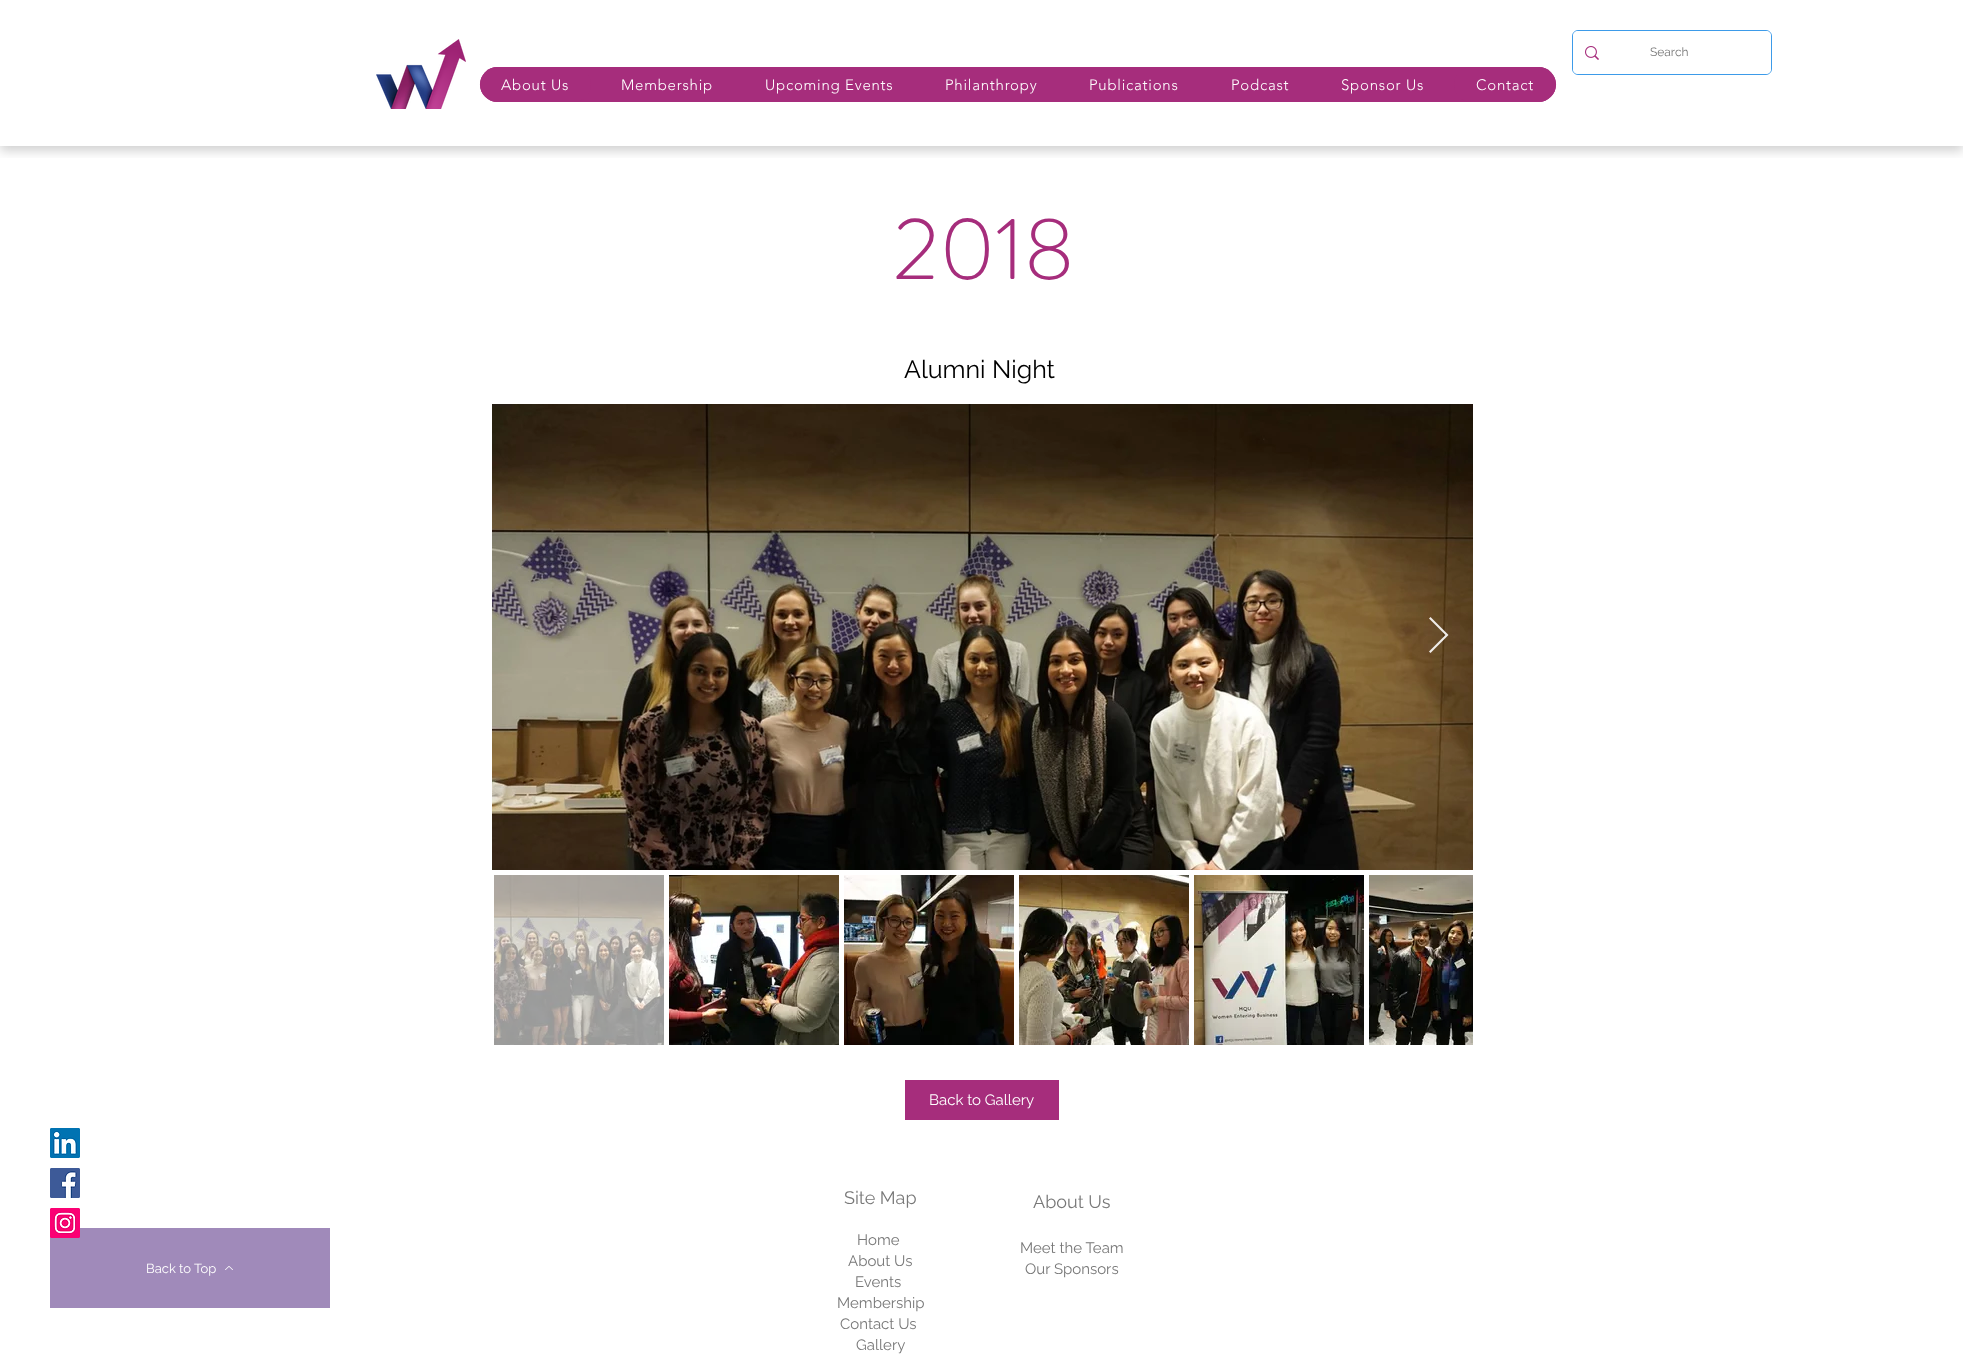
<!DOCTYPE html>
<meta charset="utf-8">
<style>body { margin: 0 } canvas { display: block }</style>
<canvas id="canvas" width="1963" height="1358"></canvas>
<script type="module">
  const canvas = document.getElementById("canvas");
  const g = canvas.getContext("2d");
  g.miterLimit = 4;
  g.fontKerning = "normal";
  function drawText(s, x, y, [font, color]) {
    g.font = font;
    g.fillStyle = color;
    g.fillText(s, x, y);
  }
  function fillBox(x, y, w, h, color) {
    g.fillStyle = color;
    g.fillRect(x, y, w, h);
  }
  function fillRounded(x, y, w, h, r, color) {
    g.fillStyle = color;
    g.beginPath();
    g.roundRect(x, y, w, h, r);
    g.fill();
  }
  async function drawPicture(src, x, y, w, h) {
    const img = new Image();
    img.src = src;
    await img.decode();
    g.drawImage(img, x, y, w, h);
  }

  const s1 = ["12px Raleway", "#787878"];
  const s2 = ["300 15px 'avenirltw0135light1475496'", "#FFFFFF"];
  const s3 = ["300 88px 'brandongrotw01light'", "#A62D7C"];
  const s4 = ["25px Raleway", "#000000"];
  const s5 = ["15px Raleway", "#FFFFFF"];
  const s6 = ["13px Raleway", "#FFFFFF"];
  const s7 = ["18px Raleway", "#787878"];
  const s8 = ["15px Raleway", "#787878"];

  fillBox(0, 0, 1963, 1358, "#FFFFFF");
  g.save();
  g.beginPath();
  g.rect(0, 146, 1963, 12);
  g.clip();
  g.fillStyle = "rgba(0, 0, 0, 0.18)";
  g.filter = "blur(5.5px)";
  g.beginPath();
  g.rect(0, 5, 1963, 146);
  g.fill();
  g.filter = "none";
  g.restore();
  await drawPicture("pic1.png", 376, 39, 90, 70);
  g.beginPath();
  g.roundRect(1572.5, 30.5, 199, 44, 5.5);
  g.strokeStyle = "#3D9BE9";
  g.stroke();
  fillRounded(1573, 31, 198, 43, 5, "#FFFFFF");
  await drawPicture("pic2.png", 1585, 46, 14, 14);
  drawText("Search", 1650, 56, s1);
  fillRounded(480, 67, 1076, 35, 17.5, "#A62D7C");
  fillRounded(480, 67, 111, 35, 17.5, "#A62D7C");
  g.letterSpacing = "0.75px";
  drawText("About Us", 501, 90, s2);
  drawText("Membership", 621, 90, s2);
  drawText("Upcoming Events", 765, 90, s2);
  drawText("Philanthropy", 945, 90, s2);
  drawText("Publications", 1089, 90, s2);
  drawText("Podcast", 1231, 90, s2);
  drawText("Sponsor Us", 1341, 90, s2);
  fillRounded(1454, 67, 102, 35, 17.5, "#A62D7C");
  drawText("Contact", 1476, 90, s2);
  g.letterSpacing = "0px";
  drawText("2018", 893, 279, s3);
  drawText("Alumni Night", 904, 378, s4);
  await drawPicture("pic3.png", 492, 404, 981, 466);
  g.fillStyle = "rgba(255, 255, 255, 0.9)";
  g.beginPath();
  g.moveTo(1429, 618.5);
  g.lineTo(1430.5, 617);
  g.lineTo(1448.5, 635);
  g.lineTo(1430.5, 653);
  g.lineTo(1429, 651.5);
  g.lineTo(1445.5, 635);
  g.closePath();
  g.fill();
  await drawPicture("pic4.png", 494, 875, 170, 170);
  await drawPicture("pic5.png", 669, 875, 170, 170);
  await drawPicture("pic6.png", 844, 875, 170, 170);
  await drawPicture("pic7.png", 1019, 875, 170, 170);
  await drawPicture("pic8.png", 1194, 875, 170, 170);
  await drawPicture("pic9.png", 1369, 875, 104, 170);
  fillBox(905, 1080, 154, 40, "#A62D7C");
  drawText("Back to Gallery", 929, 1105, s5);
  await drawPicture("pic10.png", 50, 1128, 30, 30);
  await drawPicture("pic11.png", 50, 1168, 30, 30);
  fillBox(50, 1228, 280, 80, "#A08ABA");
  await drawPicture("pic12.png", 50, 1208, 30, 30);
  drawText("Back to Top", 146, 1273, s6);
  await drawPicture("pic13.png", 225, 1266, 8, 4);
  drawText("Site Map", 844, 1204, s7);
  drawText("Home", 857, 1245, s8);
  drawText("About Us", 848, 1266, s8);
  drawText("Events", 855, 1287, s8);
  drawText("Membership", 837, 1308, s8);
  drawText("Contact Us", 840, 1329, s8);
  drawText("Gallery", 856, 1350, s8);
  drawText("About Us", 1033, 1208, s7);
  drawText("Meet the Team", 1020, 1253, s8);
  drawText("Our Sponsors", 1025, 1274, s8);
</script>
